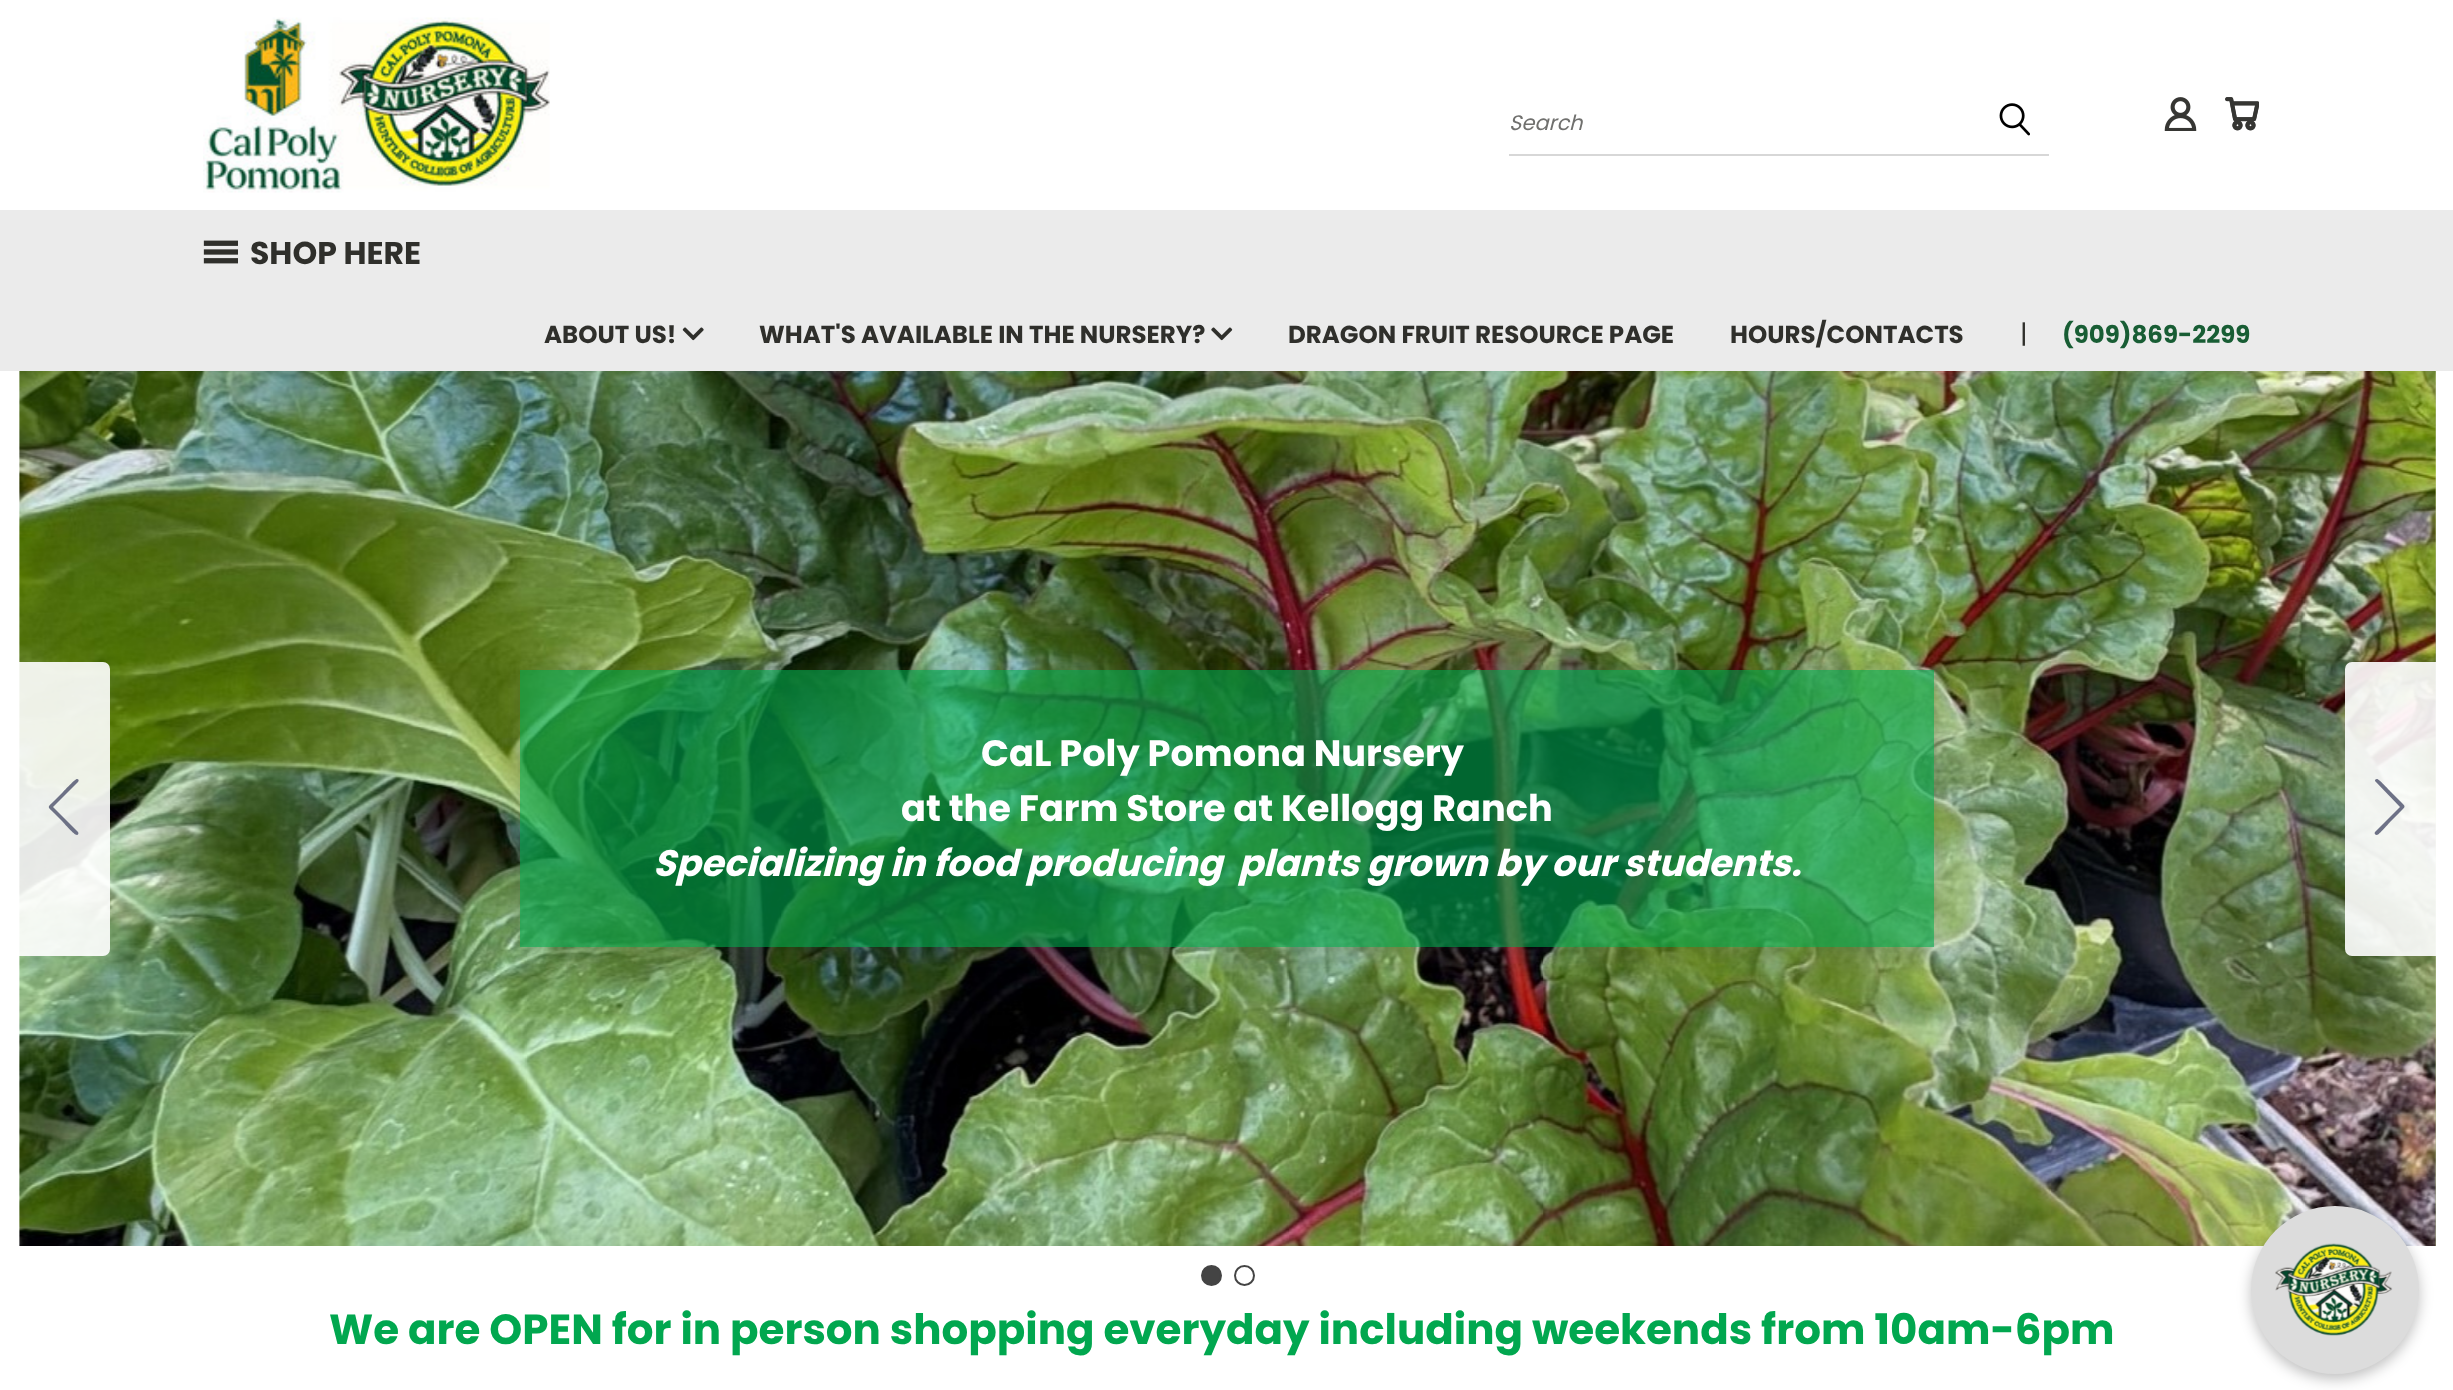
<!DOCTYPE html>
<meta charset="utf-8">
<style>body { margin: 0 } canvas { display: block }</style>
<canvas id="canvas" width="2453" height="1390"></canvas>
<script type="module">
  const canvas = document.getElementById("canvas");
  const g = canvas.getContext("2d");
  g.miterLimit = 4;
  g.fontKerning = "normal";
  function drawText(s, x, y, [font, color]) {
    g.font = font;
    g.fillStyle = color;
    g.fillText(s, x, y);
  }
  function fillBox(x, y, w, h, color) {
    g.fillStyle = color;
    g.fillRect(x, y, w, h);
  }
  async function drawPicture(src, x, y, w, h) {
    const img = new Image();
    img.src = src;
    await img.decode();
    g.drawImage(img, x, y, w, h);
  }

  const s1 = ["italic 21px Poppins", "#70706E"];
  const s2 = ["bold 31.5px Poppins", "#2F2F2B"];
  const s3 = ["bold 24.5px Poppins", "#2F2F2B"];
  const s4 = ["26px Poppins", "#2F2F2B"];
  const s5 = ["bold 24.5px Poppins", "#185D34"];
  const s6 = ["bold 36.75px Poppins", "#FFFFFF"];
  const s7 = ["italic bold 36.75px Poppins", "#FFFFFF"];
  const s8 = ["bold 42px Poppins", "#01A74F"];

  fillBox(0, 0, 2453, 1390, "#FFFFFF");
  await drawPicture("pic1.png", 203, 17, 347, 176);
  fillBox(1509, 154, 540, 2, "#D7D7D7");
  drawText("Search", 1509, 130, s1);
  await drawPicture("pic2.png", 1999, 103, 31, 33);
  await drawPicture("pic3.png", 2164, 97, 33, 34);
  await drawPicture("pic4.png", 2225, 97, 34, 34);
  fillBox(0, 210, 2453, 161, "#EBEBEB");
  await drawPicture("pic5.png", 203, 240, 35, 24);
  drawText("SHOP HERE", 250, 264, s2);
  drawText("ABOUT US!", 544, 343, s3);
  await drawPicture("pic6.png", 682, 327, 22, 14);
  drawText("WHAT'S AVAILABLE IN THE NURSERY?", 759, 343, s3);
  await drawPicture("pic7.png", 1211, 327, 22, 14);
  drawText("DRAGON FRUIT RESOURCE PAGE", 1288, 343, s3);
  drawText("HOURS/CONTACTS", 1730, 343, s3);
  drawText("|", 2020, 343, s4);
  drawText("(909)869-2299", 2062, 343, s5);
  await drawPicture("pic8.png", 19, 371, 2417, 875);
  g.fillStyle = "rgba(255, 255, 255, 0.9)";
  g.beginPath();
  g.roundRect(19, 662, 91, 294, [0, 7, 7, 0]);
  g.fill();
  g.fillStyle = "rgba(94, 99, 122, 0.9)";
  g.beginPath();
  g.moveTo(77, 779);
  g.bezierCurveTo(79, 779, 79, 781, 78, 782);
  g.lineTo(53, 807);
  g.lineTo(78, 832);
  g.bezierCurveTo(79, 833, 78, 835, 77, 835);
  g.bezierCurveTo(74, 835, 64, 823, 62, 821);
  g.lineTo(54, 813);
  g.bezierCurveTo(47, 806, 47, 808, 54, 801);
  g.lineTo(63, 792);
  g.bezierCurveTo(65, 790, 75, 779, 77, 779);
  g.closePath();
  g.fill();
  await drawPicture("pic9.png", 2435, 371, 1, 875);
  g.fillStyle = "rgba(255, 255, 255, 0.9)";
  g.beginPath();
  g.roundRect(2345, 662, 91, 294, [7, 0, 0, 7]);
  g.fill();
  g.fillStyle = "rgba(94, 99, 122, 0.9)";
  g.beginPath();
  g.moveTo(2377, 835);
  g.bezierCurveTo(2375, 835, 2374, 833, 2375, 832);
  g.lineTo(2400, 807);
  g.lineTo(2375, 781);
  g.bezierCurveTo(2375, 780, 2375, 779, 2377, 779);
  g.bezierCurveTo(2379, 779, 2389, 790, 2391, 792);
  g.lineTo(2400, 801);
  g.bezierCurveTo(2406, 807, 2406, 806, 2400, 812);
  g.lineTo(2391, 821);
  g.bezierCurveTo(2389, 823, 2379, 835, 2377, 835);
  g.closePath();
  g.fill();
  g.save();
  g.beginPath();
  g.moveTo(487, 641);
  g.lineTo(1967, 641);
  g.lineTo(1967, 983);
  g.lineTo(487, 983);
  g.closePath();
  g.moveTo(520, 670);
  g.lineTo(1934, 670);
  g.lineTo(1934, 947);
  g.lineTo(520, 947);
  g.closePath();
  g.clip("evenodd");
  g.fillStyle = "rgba(49, 52, 64, 0.2)";
  g.filter = "blur(10.5px)";
  g.beginPath();
  g.rect(520, 674, 1414, 276);
  g.fill();
  g.filter = "none";
  g.restore();
  fillBox(520, 670, 1414, 277, "rgba(1, 167, 79, 0.61)");
  drawText("CaL Poly Pomona Nursery", 981, 766, s6);
  drawText("at the Farm Store at Kellogg Ranch", 901, 821, s6);
  drawText("Specializing in food producing  plants grown by our students.", 653, 876, s7);
  g.fillStyle = "#444444";
  g.beginPath();
  g.arc(1211.5, 1275.5, 9.5, 0, Math.PI * 2);
  g.fill();
  g.strokeStyle = "#444444";
  g.lineWidth = 2;
  g.stroke();
  g.beginPath();
  g.arc(1244.5, 1275.5, 9.5, 0, Math.PI * 2);
  g.stroke();
  drawText("We are OPEN for in person shopping everyday including weekends from 10am-6pm", 329, 1344, s8);
  g.fillStyle = "rgba(0, 0, 0, 0.25)";
  g.filter = "blur(7px)";
  g.beginPath();
  g.roundRect(2251, 1211, 168, 168, 84);
  g.fill();
  g.filter = "none";
  g.fillStyle = "#DCDCDC";
  g.beginPath();
  g.arc(2335, 1290, 84, 0, Math.PI * 2);
  g.fill();
  await drawPicture("pic10.png", 2275, 1243, 118, 93);
</script>
